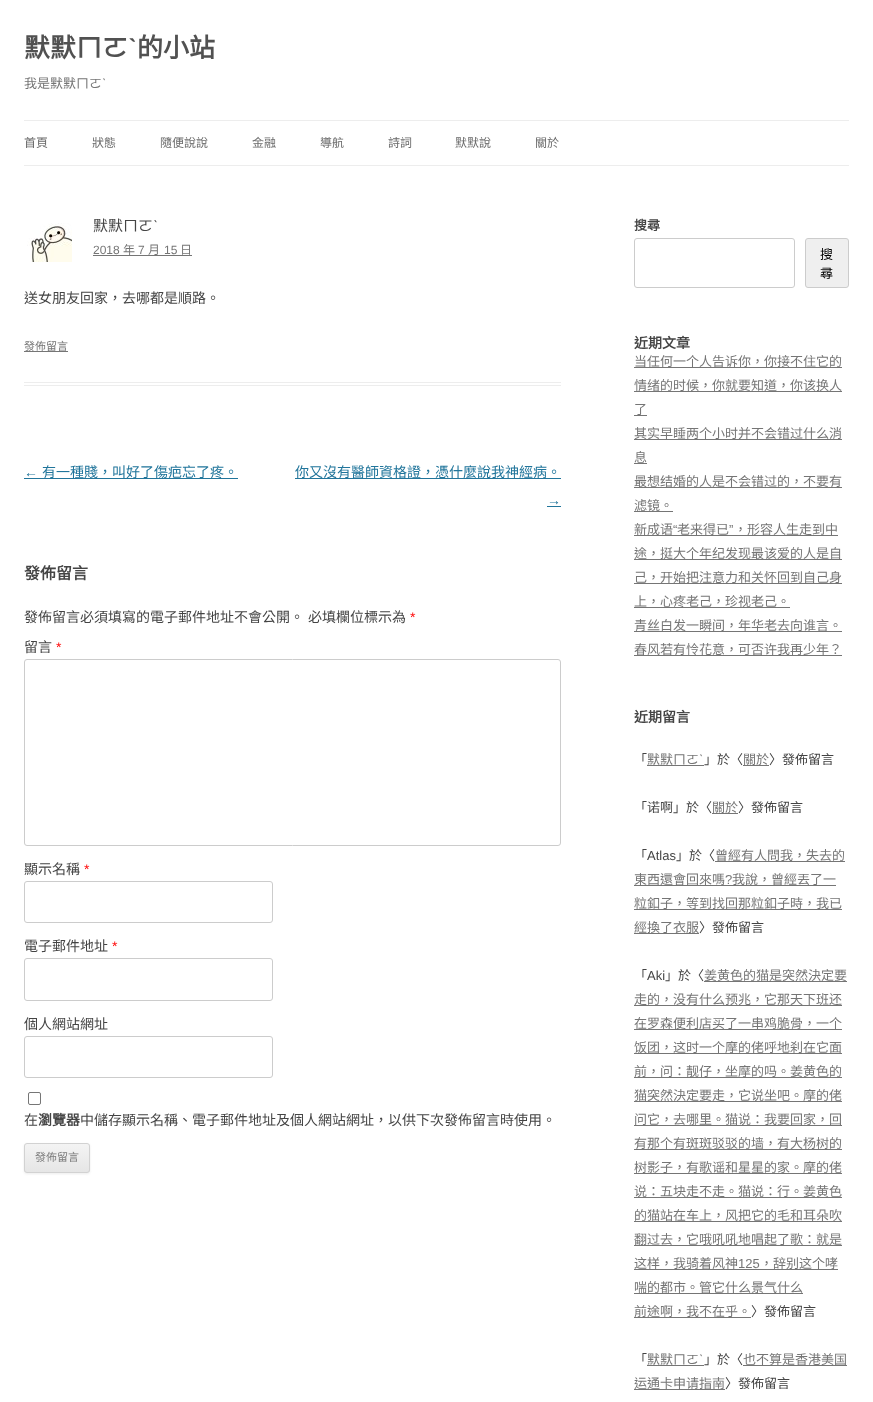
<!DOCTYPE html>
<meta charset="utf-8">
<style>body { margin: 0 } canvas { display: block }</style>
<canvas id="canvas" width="873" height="1402"></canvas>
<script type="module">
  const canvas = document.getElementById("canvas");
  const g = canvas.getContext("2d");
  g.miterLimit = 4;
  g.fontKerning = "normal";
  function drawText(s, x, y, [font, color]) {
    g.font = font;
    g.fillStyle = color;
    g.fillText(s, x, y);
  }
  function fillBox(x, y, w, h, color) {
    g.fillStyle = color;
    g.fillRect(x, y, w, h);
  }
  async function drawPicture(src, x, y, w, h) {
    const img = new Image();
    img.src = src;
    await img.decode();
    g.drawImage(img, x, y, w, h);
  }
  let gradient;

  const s1 = ["bold 26px Noto Sans CJK TC", "#515151"];
  const s2 = ["bold 26px Liberation Sans", "#515151"];
  const s3 = ["13px Noto Sans CJK TC", "#757575"];
  const s4 = ["13px Liberation Sans", "#757575"];
  const s5 = ["12px Noto Sans CJK TC", "#6A6A6A"];
  const s6 = ["15px Noto Sans CJK TC", "#444444"];
  const s7 = ["15px Liberation Sans", "#444444"];
  const s8 = ["12px Liberation Sans", "#757575"];
  const s9 = ["12px Noto Sans CJK TC", "#757575"];
  const s10 = ["14px Noto Sans CJK TC", "#444444"];
  const s11 = ["11px Noto Sans CJK TC", "#757575"];
  const s12 = ["14px Liberation Sans", "#21759B"];
  const s13 = ["14px Noto Sans CJK TC", "#21759B"];
  const s14 = ["bold 16px Noto Sans CJK TC", "#444444"];
  const s15 = ["14px Liberation Sans", "#FF0000"];
  const s16 = ["bold 14px Noto Sans CJK TC", "#444444"];
  const s17 = ["11px Noto Sans CJK TC", "#7C7C7C"];
  const s18 = ["bold 13px Noto Sans CJK TC", "#444444"];
  const s19 = ["13px Noto Sans CJK TC", "#000000"];
  const s20 = ["13px Noto Sans CJK TC", "#444444"];
  const s21 = ["13px Liberation Sans", "#444444"];

  fillBox(0, 0, 873, 1402, "#FFFFFF");
  drawText("默默ㄇㄛ", 24, 57, s1);
  drawText("ˋ", 128, 57, s2);
  drawText("的小站", 137, 57, s1);
  drawText("我是默默ㄇㄛ", 24, 88, s3);
  drawText("ˋ", 102, 88, s4);
  fillBox(24, 120, 825, 1, "#EDEDED");
  fillBox(24, 165, 825, 1, "#EDEDED");
  drawText("首頁", 24, 147, s5);
  drawText("狀態", 92, 147, s5);
  drawText("隨便說說", 160, 147, s5);
  drawText("金融", 252, 147, s5);
  drawText("導航", 320, 147, s5);
  drawText("詩詞", 388, 147, s5);
  drawText("默默說", 455, 147, s5);
  drawText("關於", 535, 147, s5);
  fillBox(24, 382, 537, 1, "#EDEDED");
  fillBox(24, 385, 537, 1, "#EDEDED");
  await drawPicture("pic1.png", 27, 223, 45, 39);
  drawText("默默ㄇㄛ", 93, 231, s6);
  drawText("ˋ", 153, 231, s7);
  drawText("2018", 93, 254, s8);
  fillBox(93, 255, 99, 1, "#757575");
  drawText("年", 123, 254, s9);
  drawText("7", 138, 254, s8);
  drawText("月", 148, 254, s9);
  drawText("15", 164, 254, s8);
  drawText("日", 180, 254, s9);
  drawText("送女朋友回家，去哪都是順路。", 24, 303, s10);
  drawText("發佈留言", 24, 350, s11);
  fillBox(24, 351, 44, 1, "#757575");
  drawText("←", 24, 477, s12);
  fillBox(24, 478, 214, 1, "#21759B");
  drawText("有一種賤，叫好了傷疤忘了疼。", 42, 477, s13);
  fillBox(295, 478, 266, 1, "#21759B");
  drawText("你又沒有醫師資格證，憑什麼說我神經病。", 295, 477, s13);
  drawText("→", 547, 505, s12);
  fillBox(547, 506, 14, 1, "#21759B");
  drawText("發佈留言", 24, 579, s14);
  drawText("發佈留言必須填寫的電子郵件地址不會公開。", 24, 622, s10);
  drawText("必填欄位標示為", 308, 622, s10);
  drawText("*", 410, 622, s15);
  drawText("留言", 24, 652, s10);
  drawText("*", 56, 652, s15);
  g.beginPath();
  g.roundRect(24.5, 659.5, 536, 186, 2.5);
  g.strokeStyle = "#CCCCCC";
  g.stroke();
  drawText("顯示名稱", 24, 874, s10);
  drawText("*", 84, 874, s15);
  g.beginPath();
  g.roundRect(24.5, 881.5, 248, 41, 2.5);
  g.stroke();
  drawText("電子郵件地址", 24, 951, s10);
  drawText("*", 112, 951, s15);
  g.beginPath();
  g.roundRect(24.5, 958.5, 248, 42, 2.5);
  g.stroke();
  drawText("個人網站網址", 24, 1029, s10);
  g.beginPath();
  g.roundRect(24.5, 1036.5, 248, 41, 2.5);
  g.stroke();
  g.beginPath();
  g.roundRect(28.5, 1092.5, 12, 12, 1.5);
  g.strokeStyle = "#767676";
  g.stroke();
  drawText("在", 24, 1125, s10);
  drawText("瀏覽器", 38, 1125, s16);
  drawText("中儲存顯示名稱、電子郵件地址及個人網站網址，以供下次發佈留言時使用。", 80, 1125, s10);
  g.fillStyle = "rgba(64, 64, 64, 0.1)";
  g.filter = "blur(1px)";
  g.beginPath();
  g.roundRect(24, 1144, 66, 30, 3);
  g.fill();
  g.filter = "none";
  g.save();
  g.beginPath();
  g.roundRect(24, 1143, 66, 30, 3);
  g.clip();
  gradient = g.createLinearGradient(57, 1144, 57, 1172);
  gradient.addColorStop(0, "#F4F4F4");
  gradient.addColorStop(1, "#E6E6E6");
  g.fillStyle = gradient;
  g.fillRect(24, 1144, 66, 28);
  g.restore();
  g.beginPath();
  g.roundRect(24.5, 1143.5, 65, 29, 2.5);
  g.strokeStyle = "#D2D2D2";
  g.stroke();
  drawText("發佈留言", 35, 1161, s17);
  drawText("搜尋", 634, 230, s18);
  g.beginPath();
  g.roundRect(634.5, 238.5, 160, 49, 2.5);
  g.strokeStyle = "#CCCCCC";
  g.stroke();
  g.fillStyle = "#EFEFEF";
  g.beginPath();
  g.roundRect(805.5, 238.5, 43, 49, 2.5);
  g.fill();
  g.stroke();
  drawText("搜", 820, 259, s19);
  drawText("尋", 820, 278, s19);
  drawText("近期文章", 634, 348, s16);
  fillBox(634, 367, 208, 1, "#757575");
  drawText("当任何一个人告诉你，你接不住它的", 634, 366, s3);
  fillBox(634, 391, 208, 1, "#757575");
  drawText("情绪的时候，你就要知道，你该换人", 634, 390, s3);
  fillBox(634, 415, 13, 1, "#757575");
  drawText("了", 634, 414, s3);
  fillBox(634, 439, 208, 1, "#757575");
  drawText("其实早睡两个小时并不会错过什么消", 634, 438, s3);
  drawText("息", 634, 462, s3);
  fillBox(634, 463, 13, 1, "#757575");
  fillBox(634, 487, 208, 1, "#757575");
  drawText("最想结婚的人是不会错过的，不要有", 634, 486, s3);
  fillBox(634, 511, 39, 1, "#757575");
  drawText("滤镜。", 634, 510, s3);
  fillBox(634, 535, 204, 1, "#757575");
  drawText("新成语", 634, 534, s3);
  drawText("“", 673, 534, s4);
  drawText("老来得已", 677, 534, s3);
  drawText("”", 729, 534, s4);
  drawText("，形容人生走到中", 734, 534, s3);
  fillBox(634, 559, 208, 1, "#757575");
  drawText("途，挺大个年纪发现最该爱的人是自", 634, 558, s3);
  fillBox(634, 583, 208, 1, "#757575");
  drawText("己，开始把注意力和关怀回到自己身", 634, 582, s3);
  fillBox(634, 607, 156, 1, "#757575");
  drawText("上，心疼老己，珍视老己。", 634, 606, s3);
  fillBox(634, 631, 208, 1, "#757575");
  drawText("青丝白发一瞬间，年华老去向谁言。", 634, 630, s3);
  fillBox(634, 655, 208, 1, "#757575");
  drawText("春风若有怜花意，可否许我再少年？", 634, 654, s3);
  drawText("近期留言", 634, 722, s16);
  drawText("「", 634, 764, s20);
  fillBox(647, 765, 57, 1, "#757575");
  drawText("默默ㄇㄛ", 647, 764, s3);
  drawText("ˋ", 699, 764, s4);
  drawText("」於〈", 704, 764, s20);
  fillBox(743, 765, 26, 1, "#757575");
  drawText("關於", 743, 764, s3);
  drawText("〉發佈留言", 769, 764, s20);
  drawText("「诺啊」於〈", 634, 812, s20);
  fillBox(712, 813, 26, 1, "#757575");
  drawText("關於", 712, 812, s3);
  drawText("〉發佈留言", 738, 812, s20);
  drawText("「", 634, 860, s20);
  drawText("Atlas", 647, 860, s21);
  drawText("」於〈", 676, 860, s20);
  fillBox(715, 861, 130, 1, "#757575");
  drawText("曾經有人問我，失去的", 715, 860, s3);
  fillBox(634, 885, 202, 1, "#757575");
  drawText("東西還會回來嗎", 634, 884, s3);
  drawText("?", 725, 884, s4);
  drawText("我說，曾經丟了一", 732, 884, s3);
  fillBox(634, 909, 208, 1, "#757575");
  drawText("粒釦子，等到找回那粒釦子時，我已", 634, 908, s3);
  fillBox(634, 933, 65, 1, "#757575");
  drawText("經換了衣服", 634, 932, s3);
  drawText("〉發佈留言", 699, 932, s20);
  drawText("「", 634, 980, s20);
  drawText("Aki", 647, 980, s21);
  drawText("」於〈", 665, 980, s20);
  fillBox(704, 981, 143, 1, "#757575");
  drawText("姜黄色的猫是突然決定要", 704, 980, s3);
  fillBox(634, 1005, 208, 1, "#757575");
  drawText("走的，没有什么预兆，它那天下班还", 634, 1004, s3);
  fillBox(634, 1029, 208, 1, "#757575");
  drawText("在罗森便利店买了一串鸡脆骨，一个", 634, 1028, s3);
  fillBox(634, 1053, 208, 1, "#757575");
  drawText("饭团，这时一个摩的佬呼地刹在它面", 634, 1052, s3);
  fillBox(634, 1077, 208, 1, "#757575");
  drawText("前，问：靓仔，坐摩的吗。姜黄色的", 634, 1076, s3);
  fillBox(634, 1101, 208, 1, "#757575");
  drawText("猫突然決定要走，它说坐吧。摩的佬", 634, 1100, s3);
  fillBox(634, 1125, 208, 1, "#757575");
  drawText("问它，去哪里。猫说：我要回家，回", 634, 1124, s3);
  fillBox(634, 1149, 208, 1, "#757575");
  drawText("有那个有斑斑驳驳的墙，有大杨树的", 634, 1148, s3);
  fillBox(634, 1173, 208, 1, "#757575");
  drawText("树影子，有歌谣和星星的家。摩的佬", 634, 1172, s3);
  fillBox(634, 1197, 208, 1, "#757575");
  drawText("说：五块走不走。猫说：行。姜黄色", 634, 1196, s3);
  fillBox(634, 1221, 208, 1, "#757575");
  drawText("的猫站在车上，风把它的毛和耳朵吹", 634, 1220, s3);
  fillBox(634, 1245, 208, 1, "#757575");
  drawText("翻过去，它哦吼吼地唱起了歌：就是", 634, 1244, s3);
  fillBox(634, 1269, 204, 1, "#757575");
  drawText("这样，我骑着风神", 634, 1268, s3);
  drawText("125", 738, 1268, s4);
  drawText("，辞别这个哮", 760, 1268, s3);
  fillBox(634, 1293, 169, 1, "#757575");
  drawText("喘的都市。管它什么景气什么", 634, 1292, s3);
  fillBox(634, 1317, 117, 1, "#757575");
  drawText("前途啊，我不在乎。", 634, 1316, s3);
  drawText("〉發佈留言", 751, 1316, s20);
  drawText("「", 634, 1364, s20);
  fillBox(647, 1365, 57, 1, "#757575");
  drawText("默默ㄇㄛ", 647, 1364, s3);
  drawText("ˋ", 699, 1364, s4);
  drawText("」於〈", 704, 1364, s20);
  fillBox(743, 1365, 104, 1, "#757575");
  drawText("也不算是香港美国", 743, 1364, s3);
  fillBox(634, 1389, 91, 1, "#757575");
  drawText("运通卡申请指南", 634, 1388, s3);
  drawText("〉發佈留言", 725, 1388, s20);
</script>
